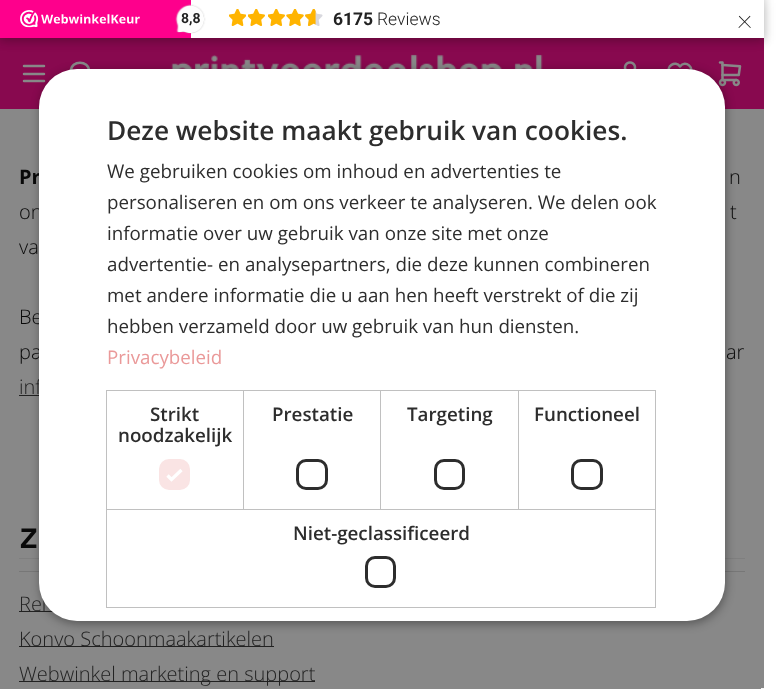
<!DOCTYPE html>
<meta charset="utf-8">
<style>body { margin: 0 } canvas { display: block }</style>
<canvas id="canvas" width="782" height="689"></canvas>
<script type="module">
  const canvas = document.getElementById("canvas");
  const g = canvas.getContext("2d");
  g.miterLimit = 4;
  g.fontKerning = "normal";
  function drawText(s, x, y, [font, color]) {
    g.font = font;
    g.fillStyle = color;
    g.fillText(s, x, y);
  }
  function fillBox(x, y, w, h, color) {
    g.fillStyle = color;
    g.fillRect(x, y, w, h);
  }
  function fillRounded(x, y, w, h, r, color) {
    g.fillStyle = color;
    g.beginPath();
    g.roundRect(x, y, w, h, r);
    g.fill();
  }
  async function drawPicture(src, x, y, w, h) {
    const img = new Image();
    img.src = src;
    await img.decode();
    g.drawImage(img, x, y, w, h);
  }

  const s1 = ["bold 17.5px Roboto", "#222222"];
  const s2 = ["300 17.5px Roboto", "#222222"];
  const s3 = ["100 30px Roboto", "#222222"];
  const s4 = ["bold 14px Roboto", "#222222"];
  const s5 = ["bold 20px Open Sans", "#090909"];
  const s6 = ["300 20px Open Sans", "#090909"];
  const s7 = ["300 20px Open Sans", "#222222"];
  const s8 = ["600 26.25px Open Sans", "#2D2D2D"];
  const s9 = ["18.75px Open Sans", "#2D2D2D"];
  const s10 = ["18.75px Open Sans", "#EA9999"];
  const s11 = ["600 18.75px Open Sans", "#2D2D2D"];
  const s12 = ["bold 28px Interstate", "#090909"];

  fillBox(0, 0, 782, 689, "#FFFFFF");
  fillBox(0, 109, 764, 580, "#888888");
  fillBox(0, 38, 764, 71, "#88094F");
  g.fillStyle = "rgba(0, 0, 0, 0.15)";
  g.filter = "blur(4px)";
  g.beginPath();
  g.rect(-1, -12, 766, 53);
  g.fill();
  g.filter = "none";
  await drawPicture("pic8.png", 171, 54, 372, 15);
  g.filter = "blur(6px)";
  g.beginPath();
  g.rect(0, 3, 764, 37);
  g.fill();
  g.filter = "none";
  fillBox(0, 0, 191, 38, "#FE008C");
  await drawPicture("pic1.png", 20, 10, 120, 18);
  fillBox(191, 0, 573, 38, "#FFFFFF");
  await drawPicture("pic2.png", 229, 9, 17, 17);
  await drawPicture("pic3.png", 248, 9, 17, 17);
  await drawPicture("pic3.png", 268, 9, 17, 17);
  await drawPicture("pic4.png", 286, 9, 18, 17);
  await drawPicture("pic5.png", 305, 9, 18, 17);
  await drawPicture("pic6.png", 305, 9, 11, 17);
  drawText("6175", 333, 25, s1);
  drawText("Reviews", 377, 25, s2);
  drawText("×", 737, 28, s3);
  await drawPicture("pic7.png", 175, 4, 31, 30);
  drawText("8,8", 181, 23, s4);
  g.beginPath();
  g.moveTo(24, 66);
  g.lineTo(44, 66);
  g.moveTo(24, 74);
  g.lineTo(44, 74);
  g.moveTo(24, 81);
  g.lineTo(44, 81);
  g.strokeStyle = "#888888";
  g.lineWidth = 2.5;
  g.lineCap = "round";
  g.lineJoin = "round";
  g.stroke();
  g.beginPath();
  g.moveTo(71, 71);
  g.bezierCurveTo(71, 82.5, 89, 82.5, 89, 71);
  g.bezierCurveTo(89, 60, 71, 60, 71, 71);
  g.stroke();
  await drawPicture("pic9.png", 623, 61, 14, 8);
  g.beginPath();
  g.moveTo(689.5, 74.5);
  g.lineTo(680, 84);
  g.lineTo(669.5, 73);
  g.bezierCurveTo(665.5, 66.5, 675.5, 60, 680, 66.5);
  g.bezierCurveTo(685.5, 59, 695.5, 68.5, 689.5, 74.5);
  g.stroke();
  await drawPicture("pic10.png", 718, 61, 24, 26);
  fillBox(19, 395, 20, 1, "#222222");
  fillBox(19, 558, 726, 1, "#7F7F7F");
  fillBox(19, 571, 726, 1, "#777777");
  fillBox(19, 611, 34, 1, "#222222");
  g.fillStyle = "rgba(0, 0, 0, 0.35)";
  g.filter = "blur(5px)";
  g.beginPath();
  g.roundRect(40, 71, 686, 553, 38);
  g.fill();
  g.filter = "none";
  drawText("Pr", 19, 184, s5);
  drawText("on", 19, 219, s6);
  drawText("Be", 19, 324, s6);
  drawText("pa", 19, 359, s6);
  drawText("inf", 19, 394, s7);
  drawText("Rel", 19, 611, s7);
  fillRounded(39, 69, 686, 552, 38, "#FFFFFF");
  drawText("Deze website maakt gebruik van cookies.", 107, 140, s8);
  drawText("We gebruiken cookies om inhoud en advertenties te", 107, 178, s9);
  drawText("personaliseren en om ons verkeer te analyseren. We delen ook", 107, 209, s9);
  drawText("informatie over uw gebruik van onze site met onze", 107, 240, s9);
  drawText("advertentie- en analysepartners, die deze kunnen combineren", 107, 271, s9);
  drawText("met andere informatie die u aan hen heeft verstrekt of die zij", 107, 302, s9);
  drawText("hebben verzameld door uw gebruik van hun diensten.", 107, 333, s9);
  drawText("Privacybeleid", 107, 364, s10);
  g.strokeStyle = "#C0C0C0";
  g.lineWidth = 1;
  g.lineJoin = "miter";
  g.strokeRect(106.5, 390.5, 137, 119);
  drawText("Strikt", 150, 421, s11);
  drawText("noodzakelijk", 118, 442, s11);
  fillRounded(159, 459, 31, 31, 10, "#FAE4E4");
  g.beginPath();
  g.moveTo(167.5, 475.5);
  g.lineTo(171.5, 479.5);
  g.lineTo(181.5, 470);
  g.strokeStyle = "#FFFFFF";
  g.lineWidth = 3.3;
  g.lineCap = "butt";
  g.stroke();
  g.strokeStyle = "#C0C0C0";
  g.lineWidth = 1;
  g.strokeRect(243.5, 390.5, 137, 119);
  drawText("Prestatie", 272, 421, s11);
  g.beginPath();
  g.roundRect(297.5, 460.5, 29, 28, 8.5);
  g.strokeStyle = "#2D2D2D";
  g.lineWidth = 3;
  g.stroke();
  g.strokeStyle = "#C0C0C0";
  g.lineWidth = 1;
  g.strokeRect(380.5, 390.5, 138, 119);
  drawText("Targeting", 407, 421, s11);
  g.beginPath();
  g.roundRect(435.5, 460.5, 28, 28, 8.5);
  g.strokeStyle = "#2D2D2D";
  g.lineWidth = 3;
  g.stroke();
  g.strokeStyle = "#C0C0C0";
  g.lineWidth = 1;
  g.strokeRect(518.5, 390.5, 137, 119);
  drawText("Functioneel", 534, 421, s11);
  g.beginPath();
  g.roundRect(572.5, 460.5, 29, 28, 8.5);
  g.strokeStyle = "#2D2D2D";
  g.lineWidth = 3;
  g.stroke();
  g.strokeStyle = "#C0C0C0";
  g.lineWidth = 1;
  g.strokeRect(106.5, 509.5, 549, 98);
  drawText("Niet-geclassificeerd", 293, 540, s11);
  g.beginPath();
  g.roundRect(366.5, 557.5, 28, 29, 8.5);
  g.strokeStyle = "#2D2D2D";
  g.lineWidth = 3;
  g.stroke();
  drawText("n", 729, 184, s6);
  drawText("t", 730, 219, s6);
  drawText("va", 19, 254, s6);
  drawText("ar", 726, 359, s6);
  drawText("Z", 19, 548, s12);
  fillBox(19, 646, 255, 1, "#222222");
  drawText("Konvo Schoonmaakartikelen", 19, 646, s7);
  fillBox(19, 681, 296, 1, "#222222");
  drawText("Webwinkel marketing en support", 19, 681, s7);
  fillBox(761, 688, 3, 1, "#F5F5F5");
</script>
